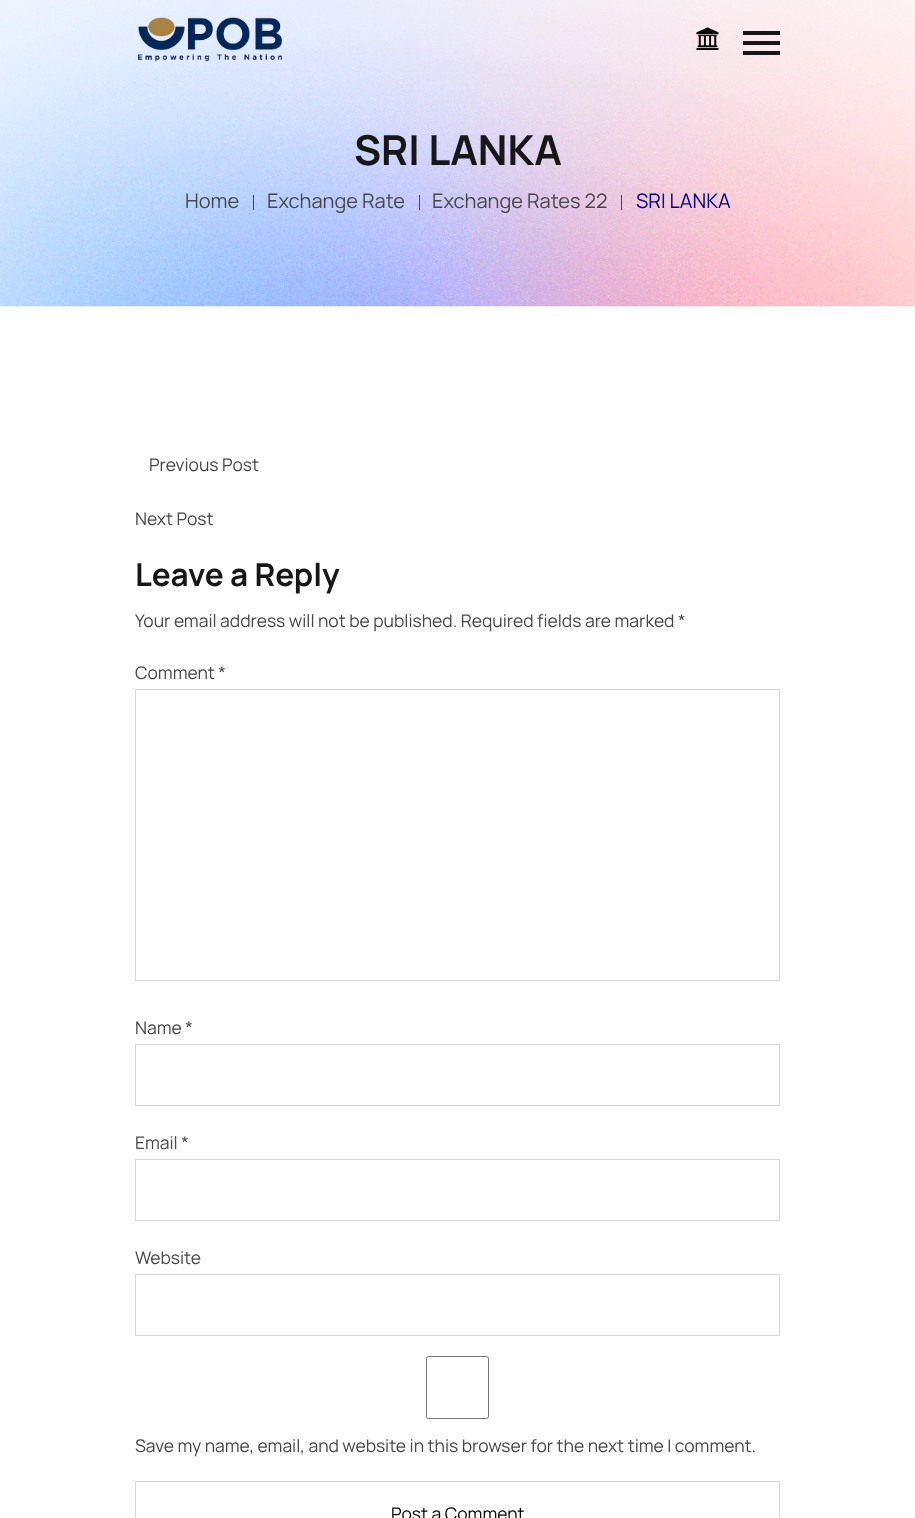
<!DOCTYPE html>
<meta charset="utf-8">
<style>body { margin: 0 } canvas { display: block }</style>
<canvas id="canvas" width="915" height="1518"></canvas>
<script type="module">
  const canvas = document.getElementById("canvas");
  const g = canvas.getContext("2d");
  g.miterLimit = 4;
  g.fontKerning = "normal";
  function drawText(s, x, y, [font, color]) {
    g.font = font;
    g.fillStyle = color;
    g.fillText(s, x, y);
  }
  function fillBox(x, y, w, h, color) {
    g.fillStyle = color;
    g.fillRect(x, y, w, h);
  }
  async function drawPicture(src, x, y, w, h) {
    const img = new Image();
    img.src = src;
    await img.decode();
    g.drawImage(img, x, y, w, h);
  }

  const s1 = ["bold 41.25px Manrope", "#171717"];
  const s2 = ["20px Manrope", "#474747"];
  const s3 = ["20px Manrope", "#000080"];
  const s4 = ["17.5px Manrope", "#474747"];
  const s5 = ["bold 31.5px Manrope", "#171717"];
  const s6 = ["17.5px Manrope", "#000000"];

  fillBox(0, 0, 915, 1518, "#FFFFFF");
  await drawPicture("pic3.png", 0, 0, 915, 307);
  await drawPicture("pic1.png", 138, 17, 144, 45);
  await drawPicture("pic2.png", 696, 27, 23, 23);
  fillBox(743, 31, 37, 4, "#171717");
  fillBox(743, 41, 37, 4, "#171717");
  fillBox(743, 51, 37, 4, "#171717");
  drawText("SRI LANKA", 354, 165, s1);
  drawText("Home", 185, 208, s2);
  fillBox(253, 195, 1, 15, "#474747");
  drawText("Exchange Rate", 267, 208, s2);
  fillBox(419, 195, 1, 15, "#474747");
  drawText("Exchange Rates 22", 432, 208, s2);
  fillBox(621, 195, 1, 15, "#474747");
  drawText("SRI LANKA", 636, 208, s3);
  drawText("Previous Post", 149, 471, s4);
  drawText("Next Post", 135, 525, s4);
  drawText("Leave a Reply", 135, 586, s5);
  drawText("Your email address will not be published. Required fields are marked *", 135, 627, s4);
  drawText("Comment *", 135, 679, s4);
  g.strokeStyle = "#D9D9D9";
  g.strokeRect(135.5, 689.5, 644, 291);
  drawText("Name *", 135, 1034, s4);
  g.strokeRect(135.5, 1044.5, 644, 61);
  drawText("Email *", 135, 1149, s4);
  g.strokeRect(135.5, 1159.5, 644, 61);
  drawText("Website", 135, 1264, s4);
  g.strokeRect(135.5, 1274.5, 644, 61);
  g.beginPath();
  g.roundRect(426.5, 1356.5, 62, 62, 2);
  g.strokeStyle = "#767676";
  g.stroke();
  drawText("Save my name, email, and website in this browser for the next time I comment.", 135, 1452, s4);
  g.strokeStyle = "#D9D9D9";
  g.strokeRect(135.5, 1481.5, 644, 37);
  drawText("Post a Comment", 391, 1520, s6);
</script>
